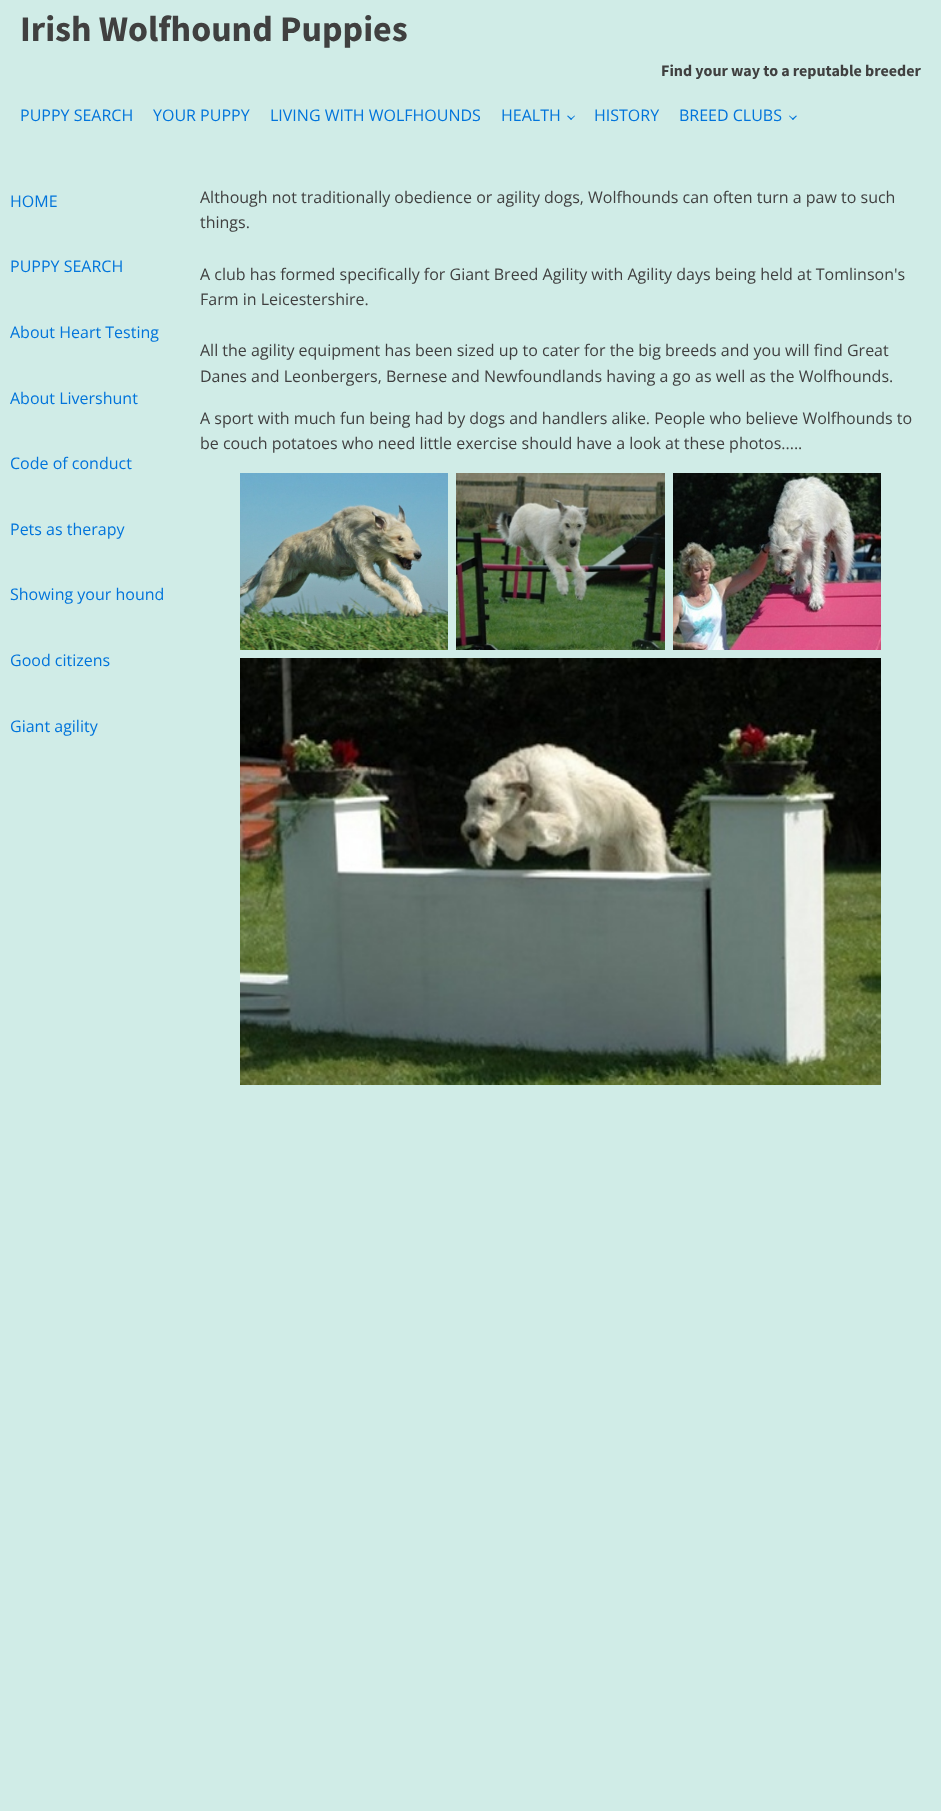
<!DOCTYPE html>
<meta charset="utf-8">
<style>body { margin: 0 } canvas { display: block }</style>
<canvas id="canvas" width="941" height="1811"></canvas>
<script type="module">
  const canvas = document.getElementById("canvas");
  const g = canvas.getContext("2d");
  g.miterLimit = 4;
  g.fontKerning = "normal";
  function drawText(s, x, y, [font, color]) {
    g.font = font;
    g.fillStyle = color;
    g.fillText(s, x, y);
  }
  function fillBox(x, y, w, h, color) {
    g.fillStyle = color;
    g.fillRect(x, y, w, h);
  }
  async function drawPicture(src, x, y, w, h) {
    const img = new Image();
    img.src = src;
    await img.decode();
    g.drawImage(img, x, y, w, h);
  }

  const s1 = ["bold 36px Source Sans Pro", "#404040"];
  const s2 = ["bold 16px Source Sans Pro", "#404040"];
  const s3 = ["16px Open Sans", "#0074DB"];
  const s4 = ["16px Open Sans", "#404040"];

  fillBox(0, 0, 941, 1811, "#D0ECE7");
  drawText("Irish Wolfhound Puppies", 20, 41, s1);
  drawText("Find your way to a reputable breeder", 661, 76, s2);
  drawText("PUPPY SEARCH", 20, 121, s3);
  drawText("YOUR PUPPY", 153, 121, s3);
  drawText("LIVING WITH WOLFHOUNDS", 270, 121, s3);
  drawText("HEALTH", 501, 121, s3);
  g.beginPath();
  g.moveTo(575, 116);
  g.lineTo(571, 120);
  g.lineTo(570.5, 119);
  g.lineTo(574.5, 115.5);
  g.closePath();
  g.fill();
  g.beginPath();
  g.moveTo(572, 119);
  g.lineTo(571, 120);
  g.lineTo(567, 116);
  g.lineTo(568, 115.5);
  g.closePath();
  g.fill();
  drawText("HISTORY", 594, 121, s3);
  drawText("BREED CLUBS", 679, 121, s3);
  g.beginPath();
  g.moveTo(797, 116);
  g.lineTo(793, 120);
  g.lineTo(792, 119);
  g.lineTo(796, 115.5);
  g.closePath();
  g.fill();
  g.beginPath();
  g.moveTo(793.5, 119);
  g.lineTo(793, 120);
  g.lineTo(789, 116);
  g.lineTo(789.5, 115.5);
  g.closePath();
  g.fill();
  drawText("HOME", 10, 207, s3);
  drawText("PUPPY SEARCH", 10, 272, s3);
  drawText("About Heart Testing", 10, 338, s3);
  drawText("About Livershunt", 10, 404, s3);
  drawText("Code of conduct", 10, 469, s3);
  drawText("Pets as therapy", 10, 535, s3);
  drawText("Showing your hound", 10, 600, s3);
  drawText("Good citizens", 10, 666, s3);
  drawText("Giant agility", 10, 732, s3);
  drawText("Although not traditionally obedience or agility dogs, Wolfhounds can often turn a paw to such", 200, 203, s4);
  drawText("things.", 200, 228, s4);
  drawText("A club has formed specifically for Giant Breed Agility with Agility days being held at Tomlinson's", 200, 280, s4);
  drawText("Farm in Leicestershire.", 200, 305, s4);
  drawText("All the agility equipment has been sized up to cater for the big breeds and you will find Great", 200, 356, s4);
  drawText("Danes and Leonbergers, Bernese and Newfoundlands having a go as well as the Wolfhounds.", 200, 382, s4);
  drawText("A sport with much fun being had by dogs and handlers alike. People who believe Wolfhounds to", 200, 424, s4);
  drawText("be couch potatoes who need little exercise should have a look at these photos.....", 200, 449, s4);
  await drawPicture("pic1.png", 240, 473, 208, 177);
  await drawPicture("pic2.png", 456, 473, 209, 177);
  await drawPicture("pic3.png", 673, 473, 208, 177);
  await drawPicture("pic4.png", 240, 658, 641, 427);
</script>
